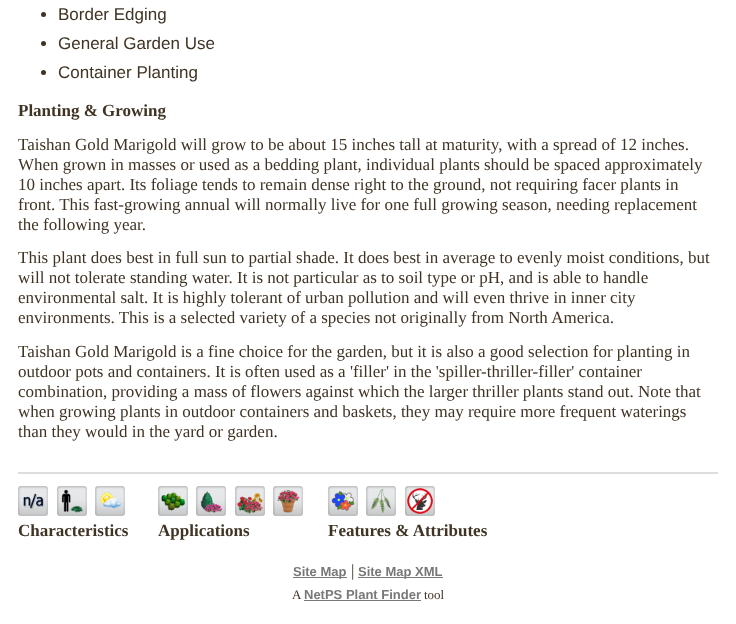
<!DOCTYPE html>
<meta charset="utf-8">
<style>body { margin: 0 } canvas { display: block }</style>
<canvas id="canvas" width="736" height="624"></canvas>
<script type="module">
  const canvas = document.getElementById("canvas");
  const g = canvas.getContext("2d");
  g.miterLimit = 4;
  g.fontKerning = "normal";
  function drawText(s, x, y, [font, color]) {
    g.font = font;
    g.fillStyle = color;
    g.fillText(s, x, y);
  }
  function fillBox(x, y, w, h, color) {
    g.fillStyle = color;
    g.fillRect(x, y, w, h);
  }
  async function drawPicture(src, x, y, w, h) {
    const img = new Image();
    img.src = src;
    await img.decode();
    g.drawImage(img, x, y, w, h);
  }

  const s1 = ["17px Liberation Sans", "#3F3324"];
  const s2 = ["bold 17px Liberation Serif", "#3F3324"];
  const s3 = ["17px Liberation Serif", "#3F3324"];
  const s4 = ["bold 13px Liberation Sans", "#787878"];
  const s5 = ["13px Liberation Serif", "#3F3324"];

  fillBox(0, 0, 736, 624, "#FFFFFF");
  g.fillStyle = "#3F3324";
  g.beginPath();
  g.arc(43.5, 14.5, 2.5, 0, Math.PI * 2);
  g.fill();
  drawText("Border Edging", 58, 20, s1);
  g.beginPath();
  g.arc(43.5, 43.5, 2.5, 0, Math.PI * 2);
  g.fill();
  drawText("General Garden Use", 58, 49, s1);
  g.beginPath();
  g.arc(43.5, 72.5, 2.5, 0, Math.PI * 2);
  g.fill();
  drawText("Container Planting", 58, 78, s1);
  drawText("Planting & Growing", 18, 116, s2);
  drawText("Taishan Gold Marigold will grow to be about 15 inches tall at maturity, with a spread of 12 inches.", 18, 150, s3);
  drawText("When grown in masses or used as a bedding plant, individual plants should be spaced approximately", 18, 170, s3);
  drawText("10 inches apart. Its foliage tends to remain dense right to the ground, not requiring facer plants in", 18, 190, s3);
  drawText("front. This fast-growing annual will normally live for one full growing season, needing replacement", 18, 210, s3);
  drawText("the following year.", 18, 230, s3);
  drawText("This plant does best in full sun to partial shade. It does best in average to evenly moist conditions, but", 18, 263, s3);
  drawText("will not tolerate standing water. It is not particular as to soil type or pH, and is able to handle", 18, 283, s3);
  drawText("environmental salt. It is highly tolerant of urban pollution and will even thrive in inner city", 18, 303, s3);
  drawText("environments. This is a selected variety of a species not originally from North America.", 18, 323, s3);
  drawText("Taishan Gold Marigold is a fine choice for the garden, but it is also a good selection for planting in", 18, 357, s3);
  drawText("outdoor pots and containers. It is often used as a 'filler' in the 'spiller-thriller-filler' container", 18, 377, s3);
  drawText("combination, providing a mass of flowers against which the larger thriller plants stand out. Note that", 18, 397, s3);
  drawText("when growing plants in outdoor containers and baskets, they may require more frequent waterings", 18, 417, s3);
  drawText("than they would in the yard or garden.", 18, 437, s3);
  fillBox(18, 472, 700, 2, "#DDDDDD");
  await drawPicture("pic1.png", 18, 486, 30, 30);
  await drawPicture("pic2.png", 57, 486, 30, 30);
  await drawPicture("pic3.png", 95, 486, 30, 30);
  drawText("Characteristics", 18, 536, s2);
  await drawPicture("pic4.png", 158, 486, 30, 30);
  await drawPicture("pic5.png", 196, 486, 30, 30);
  await drawPicture("pic6.png", 235, 486, 30, 30);
  await drawPicture("pic7.png", 273, 486, 30, 30);
  drawText("Applications", 158, 536, s2);
  await drawPicture("pic8.png", 328, 486, 30, 30);
  await drawPicture("pic9.png", 366, 486, 30, 30);
  await drawPicture("pic10.png", 405, 486, 30, 30);
  drawText("Features & Attributes", 328, 536, s2);
  fillBox(293, 577, 54, 1, "#787878");
  drawText("Site Map", 293, 576, s4);
  drawText("|", 351, 576, s3);
  fillBox(358, 577, 85, 1, "#787878");
  drawText("Site Map XML", 358, 576, s4);
  drawText("A", 292, 599, s5);
  drawText("NetPS Plant Finder", 304, 599, s4);
  fillBox(304, 600, 117, 1, "#787878");
  drawText("tool", 424, 599, s5);
</script>
